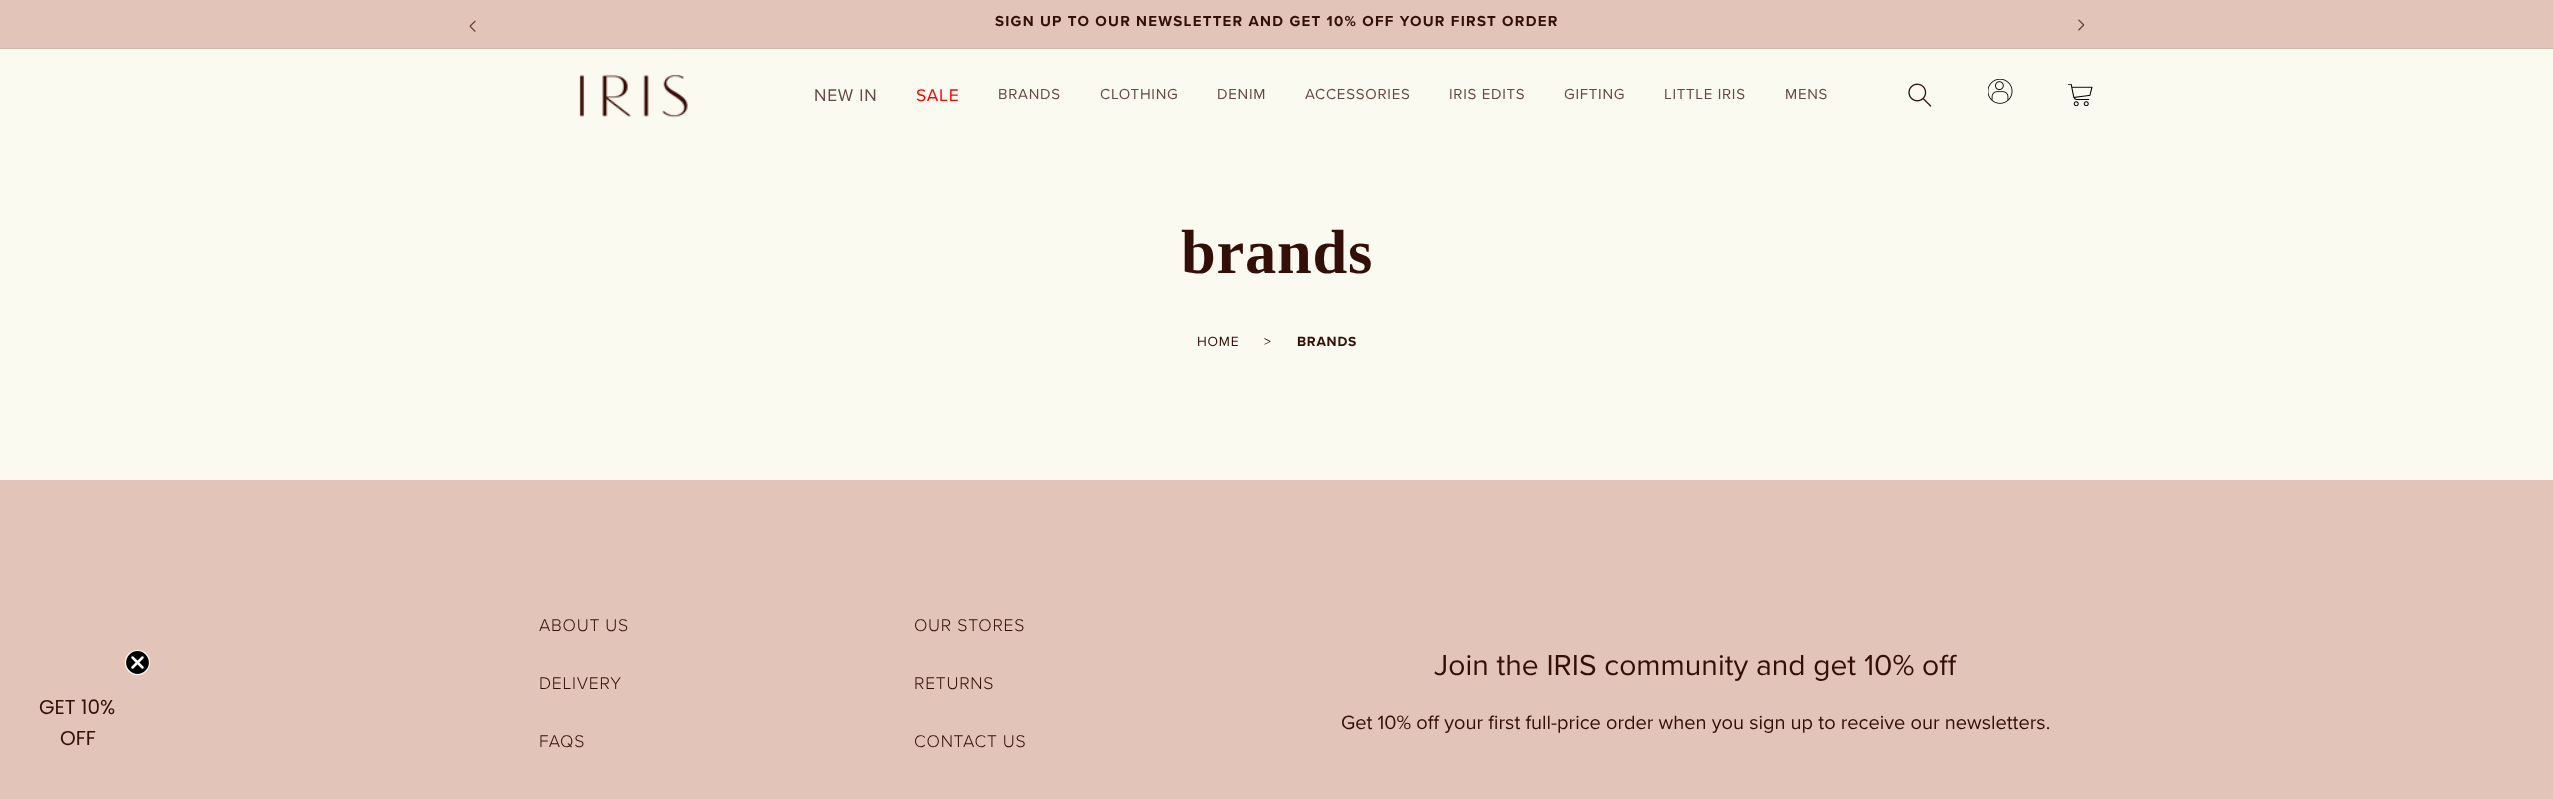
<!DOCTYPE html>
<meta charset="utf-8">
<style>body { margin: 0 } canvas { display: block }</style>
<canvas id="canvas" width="2553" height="799"></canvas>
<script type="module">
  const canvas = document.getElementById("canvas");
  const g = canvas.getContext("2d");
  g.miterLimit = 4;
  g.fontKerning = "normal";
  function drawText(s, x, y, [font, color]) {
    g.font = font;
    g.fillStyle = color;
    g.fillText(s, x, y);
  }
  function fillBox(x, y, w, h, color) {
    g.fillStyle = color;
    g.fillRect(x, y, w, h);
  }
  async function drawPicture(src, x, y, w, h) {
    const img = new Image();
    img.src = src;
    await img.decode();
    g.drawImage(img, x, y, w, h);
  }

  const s1 = ["bold 15px Proxima Nova", "#330F07"];
  const s2 = ["17.5px Proxima Nova", "#654A41"];
  const s3 = ["17.5px Proxima Nova", "#FF0000"];
  const s4 = ["15px Proxima Nova", "#654A41"];
  const s5 = ["bold 62.5px Liberation Serif", "#330F07"];
  const s6 = ["13.75px Proxima Nova", "#330F07"];
  const s7 = ["bold 13.75px Proxima Nova", "#330F07"];
  const s8 = ["20px Poppins", "#330F07"];
  const s9 = ["300 17.5px Proxima Nova", "#330F07"];
  const s10 = ["30px Proxima Nova", "#330F07"];
  const s11 = ["20px Proxima Nova", "#330F07"];

  fillBox(0, 0, 2553, 799, "#FBFAF0");
  fillBox(0, 0, 2553, 48, "#E3C4B8");
  fillBox(0, 48, 2553, 1, "#D5B6AA");
  await drawPicture("pic1.png", 469, 20, 7, 12);
  g.letterSpacing = "1.25px";
  drawText("SIGN UP TO OUR NEWSLETTER AND GET 10% OFF YOUR FIRST ORDER", 995, 26, s1);
  await drawPicture("pic2.png", 2078, 19, 7, 12);
  await drawPicture("pic3.png", 579, 74, 109, 44);
  g.letterSpacing = "0.75px";
  drawText("NEW IN", 814, 101, s2);
  drawText("SALE", 916, 101, s3);
  drawText("BRANDS", 998, 99, s4);
  drawText("CLOTHING", 1100, 99, s4);
  drawText("DENIM", 1217, 99, s4);
  drawText("ACCESSORIES", 1305, 99, s4);
  drawText("IRIS EDITS", 1449, 99, s4);
  drawText("GIFTING", 1564, 99, s4);
  drawText("LITTLE IRIS", 1664, 99, s4);
  drawText("MENS", 1785, 99, s4);
  await drawPicture("pic4.png", 1908, 83, 24, 24);
  await drawPicture("pic5.png", 1988, 79, 25, 25);
  await drawPicture("pic6.png", 2068, 84, 25, 22);
  drawText("brands", 1181, 273, s5);
  drawText("HOME", 1197, 346, s6);
  drawText(">", 1264, 346, s6);
  drawText("BRANDS", 1297, 346, s7);
  fillBox(0, 480, 2553, 319, "#E3C4B8");
  g.fillStyle = "#000000";
  g.beginPath();
  g.arc(137.5, 662.5, 12, 0, Math.PI * 2);
  g.fill();
  g.strokeStyle = "#FFFFFF";
  g.lineWidth = 1.2;
  g.stroke();
  g.beginPath();
  g.moveTo(132.5, 657.5);
  g.lineTo(142.5, 667.5);
  g.moveTo(132.5, 667.5);
  g.lineTo(142.5, 657.5);
  g.closePath();
  g.lineWidth = 2.5;
  g.lineCap = "round";
  g.lineJoin = "round";
  g.stroke();
  g.letterSpacing = "0px";
  drawText("GET 10%", 39, 714, s8);
  drawText("OFF", 60, 745, s8);
  g.letterSpacing = "0.75px";
  drawText("ABOUT US", 539, 631, s9);
  drawText("OUR STORES", 914, 631, s9);
  drawText("DELIVERY", 539, 689, s9);
  drawText("RETURNS", 914, 689, s9);
  drawText("FAQS", 539, 747, s9);
  drawText("CONTACT US", 914, 747, s9);
  g.letterSpacing = "0px";
  drawText("Join the IRIS community and get 10% off", 1434, 675, s10);
  drawText("Get 10% off your first full-price order when you sign up to receive our newsletters.", 1341, 729, s11);
</script>
